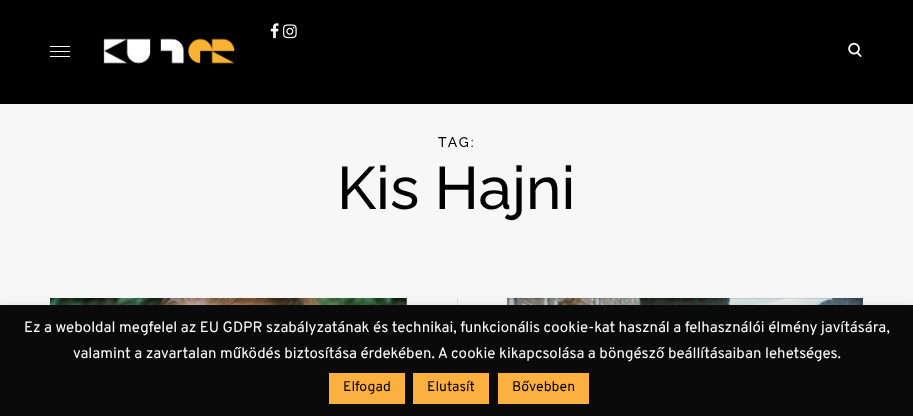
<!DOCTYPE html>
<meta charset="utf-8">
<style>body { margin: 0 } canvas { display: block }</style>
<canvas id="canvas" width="913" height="416"></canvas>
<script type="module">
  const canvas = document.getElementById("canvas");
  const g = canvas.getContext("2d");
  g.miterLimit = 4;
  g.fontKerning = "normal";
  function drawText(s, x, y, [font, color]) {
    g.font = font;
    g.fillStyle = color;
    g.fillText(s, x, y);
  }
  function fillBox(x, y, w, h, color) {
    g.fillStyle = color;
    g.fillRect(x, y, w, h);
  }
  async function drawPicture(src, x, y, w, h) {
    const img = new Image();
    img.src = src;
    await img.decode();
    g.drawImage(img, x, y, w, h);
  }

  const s1 = ["500 14px Raleway", "#000000"];
  const s2 = ["500 60px Raleway", "#000000"];
  const s3 = ["15px Overpass", "#FFFFFF"];
  const s4 = ["14px Overpass", "#000000"];

  fillBox(0, 0, 913, 416, "#F7F7F7");
  fillBox(0, 0, 913, 104, "#000000");
  await drawPicture("pic1.png", 270, 23, 9, 16);
  await drawPicture("pic2.png", 283, 24, 14, 15);
  fillBox(50, 51, 20, 1, "#FFFFFF");
  fillBox(50, 46, 20, 1, "#FFFFFF");
  fillBox(50, 56, 20, 1, "#FFFFFF");
  await drawPicture("pic3.png", 103, 38, 132, 26);
  await drawPicture("pic4.png", 848, 42, 14, 15);
  g.letterSpacing = "2px";
  drawText("TAG:", 438, 147, s1);
  g.letterSpacing = "0px";
  drawText("Kis Hajni", 337, 209, s2);
  await drawPicture("pic5.png", 50, 298, 357, 7);
  fillBox(457, 298, 1, 7, "#DEDEDE");
  await drawPicture("pic6.png", 507, 298, 356, 7);
  g.fillStyle = "rgba(172, 171, 171, 0.3)";
  g.filter = "blur(5px)";
  g.beginPath();
  g.rect(0, 304, 913, 111);
  g.fill();
  g.filter = "none";
  fillBox(0, 305, 913, 111, "#0A0A0A");
  drawText("Ez a weboldal megfelel az EU GDPR szabályzatának és technikai, funkcionális cookie-kat használ a felhasználói élmény javítására,", 24, 332, s3);
  drawText("valamint a zavartalan működés biztosítása érdekében. A cookie kikapcsolása a böngésző beállításaiban lehetséges.", 73, 358, s3);
  fillBox(329, 373, 76, 31, "#FBB040");
  drawText("Elfogad", 343, 391, s4);
  fillBox(413, 373, 76, 31, "#FBB040");
  drawText("Elutasít", 427, 391, s4);
  fillBox(498, 373, 91, 31, "#FBB040");
  drawText("Bővebben", 512, 391, s4);
</script>
